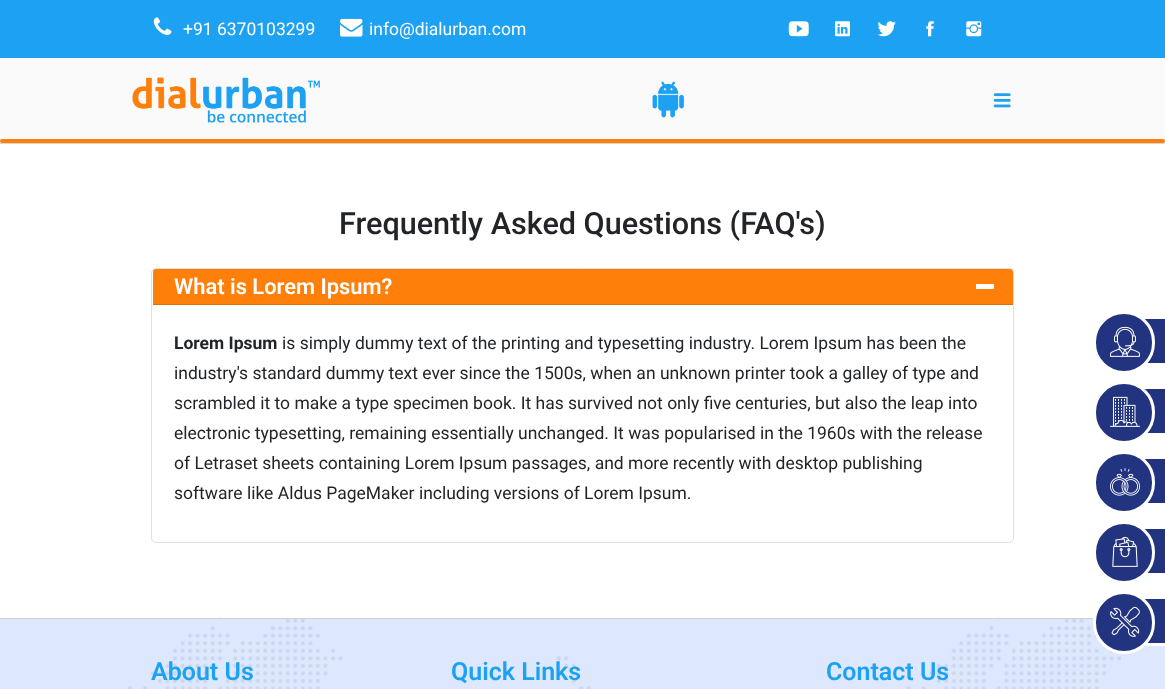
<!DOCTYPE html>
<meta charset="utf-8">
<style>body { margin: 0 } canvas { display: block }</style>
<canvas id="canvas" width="1165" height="689"></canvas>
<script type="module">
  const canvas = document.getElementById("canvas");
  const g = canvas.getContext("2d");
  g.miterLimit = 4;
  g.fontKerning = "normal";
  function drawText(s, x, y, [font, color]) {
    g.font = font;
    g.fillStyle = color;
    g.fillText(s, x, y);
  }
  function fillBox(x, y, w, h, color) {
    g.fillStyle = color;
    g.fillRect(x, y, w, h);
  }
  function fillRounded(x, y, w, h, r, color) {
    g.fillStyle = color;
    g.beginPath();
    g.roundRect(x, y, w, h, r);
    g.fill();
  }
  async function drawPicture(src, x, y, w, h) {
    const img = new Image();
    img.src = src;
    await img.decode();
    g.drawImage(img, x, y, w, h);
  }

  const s1 = ["17.5px Roboto", "#FFFFFF"];
  const s2 = ["500 30.6px Roboto", "#212529"];
  const s3 = ["600 21.9px Roboto", "#FFFFFF"];
  const s4 = ["bold 17.5px Roboto", "#212529"];
  const s5 = ["17.5px Roboto", "#212529"];
  const s6 = ["600 25px Roboto", "#1DA1F2"];

  fillBox(0, 0, 1165, 689, "#FFFFFF");
  fillBox(0, 0, 1165, 58, "#1DA1F2");
  await drawPicture("pic1.png", 153, 17, 19, 18);
  drawText("+91 6370103299", 183, 35, s1);
  await drawPicture("pic2.png", 340, 18, 23, 19);
  drawText("info@dialurban.com", 369, 35, s1);
  await drawPicture("pic3.png", 788, 21, 21, 16);
  await drawPicture("pic4.png", 835, 21, 15, 16);
  await drawPicture("pic5.png", 877, 21, 19, 16);
  await drawPicture("pic6.png", 926, 21, 8, 16);
  await drawPicture("pic7.png", 966, 21, 16, 16);
  fillBox(0, 143, 1165, 1, "#D6D6D6");
  fillBox(0, 58, 1165, 85, "#FAFAFA");
  await drawPicture("pic8.png", 132, 77, 188, 46);
  await drawPicture("pic9.png", 652, 81, 33, 37);
  await drawPicture("pic10.png", 993, 93, 18, 15);
  fillRounded(0, 139, 1165, 4, 2, "#FF7F0B");
  drawText("Frequently Asked Questions (FAQ's)", 339, 234, s2);
  g.beginPath();
  g.roundRect(151.5, 268.5, 862, 274, 4.5);
  g.strokeStyle = "#DFDFDF";
  g.stroke();
  g.fillStyle = "#FF7F0B";
  g.beginPath();
  g.roundRect(153, 269, 860, 36, [3, 3, 0, 0]);
  g.fill();
  fillBox(153, 304, 860, 1, "#DF6F0A");
  drawText("What is Lorem Ipsum?", 174, 294, s3);
  fillBox(976, 284, 18, 5, "#FFFFFF");
  drawText("Lorem Ipsum", 174, 349, s4);
  drawText("is simply dummy text of the printing and typesetting industry. Lorem Ipsum has been the", 282, 349, s5);
  drawText("industry's standard dummy text ever since the 1500s, when an unknown printer took a galley of type and", 174, 379, s5);
  drawText("scrambled it to make a type specimen book. It has survived not only five centuries, but also the leap into", 174, 409, s5);
  drawText("electronic typesetting, remaining essentially unchanged. It was popularised in the 1960s with the release", 174, 439, s5);
  drawText("of Letraset sheets containing Lorem Ipsum passages, and more recently with desktop publishing", 174, 469, s5);
  drawText("software like Aldus PageMaker including versions of Lorem Ipsum.", 174, 499, s5);
  fillBox(1144, 319, 21, 44, "#22347F");
  g.beginPath();
  g.roundRect(1094.5, 312.5, 59, 60, 29.5);
  g.fill();
  g.strokeStyle = "#FFFFFF";
  g.lineWidth = 3;
  g.stroke();
  await drawPicture("pic11.png", 1110, 326, 30, 31);
  fillBox(1144, 389, 21, 44, "#22347F");
  g.beginPath();
  g.roundRect(1094.5, 382.5, 59, 60, 29.5);
  g.fill();
  g.stroke();
  await drawPicture("pic12.png", 1110, 396, 30, 31);
  fillBox(1144, 459, 21, 44, "#22347F");
  g.beginPath();
  g.roundRect(1094.5, 452.5, 59, 60, 29.5);
  g.fill();
  g.stroke();
  await drawPicture("pic13.png", 1110, 468, 30, 28);
  fillBox(1144, 529, 21, 44, "#22347F");
  g.beginPath();
  g.roundRect(1094.5, 522.5, 59, 60, 29.5);
  g.fill();
  g.stroke();
  await drawPicture("pic14.png", 1112, 536, 26, 31);
  fillBox(0, 619, 1165, 70, "#DDE8FF");
  fillBox(1144, 599, 21, 44, "#22347F");
  await drawPicture("pic16.png", 128, 617, 993, 72);
  g.strokeRect(1114.5, 597.5, 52, 47);
  fillBox(0, 618, 1094, 1, "#D0D0D0");
  g.fillStyle = "#22347F";
  g.beginPath();
  g.roundRect(1094.5, 592.5, 59, 60, 29.5);
  g.fill();
  g.stroke();
  await drawPicture("pic15.png", 1110, 606, 30, 31);
  drawText("About Us", 151, 680, s6);
  drawText("Quick Links", 451, 680, s6);
  drawText("Contact Us", 826, 680, s6);
</script>
